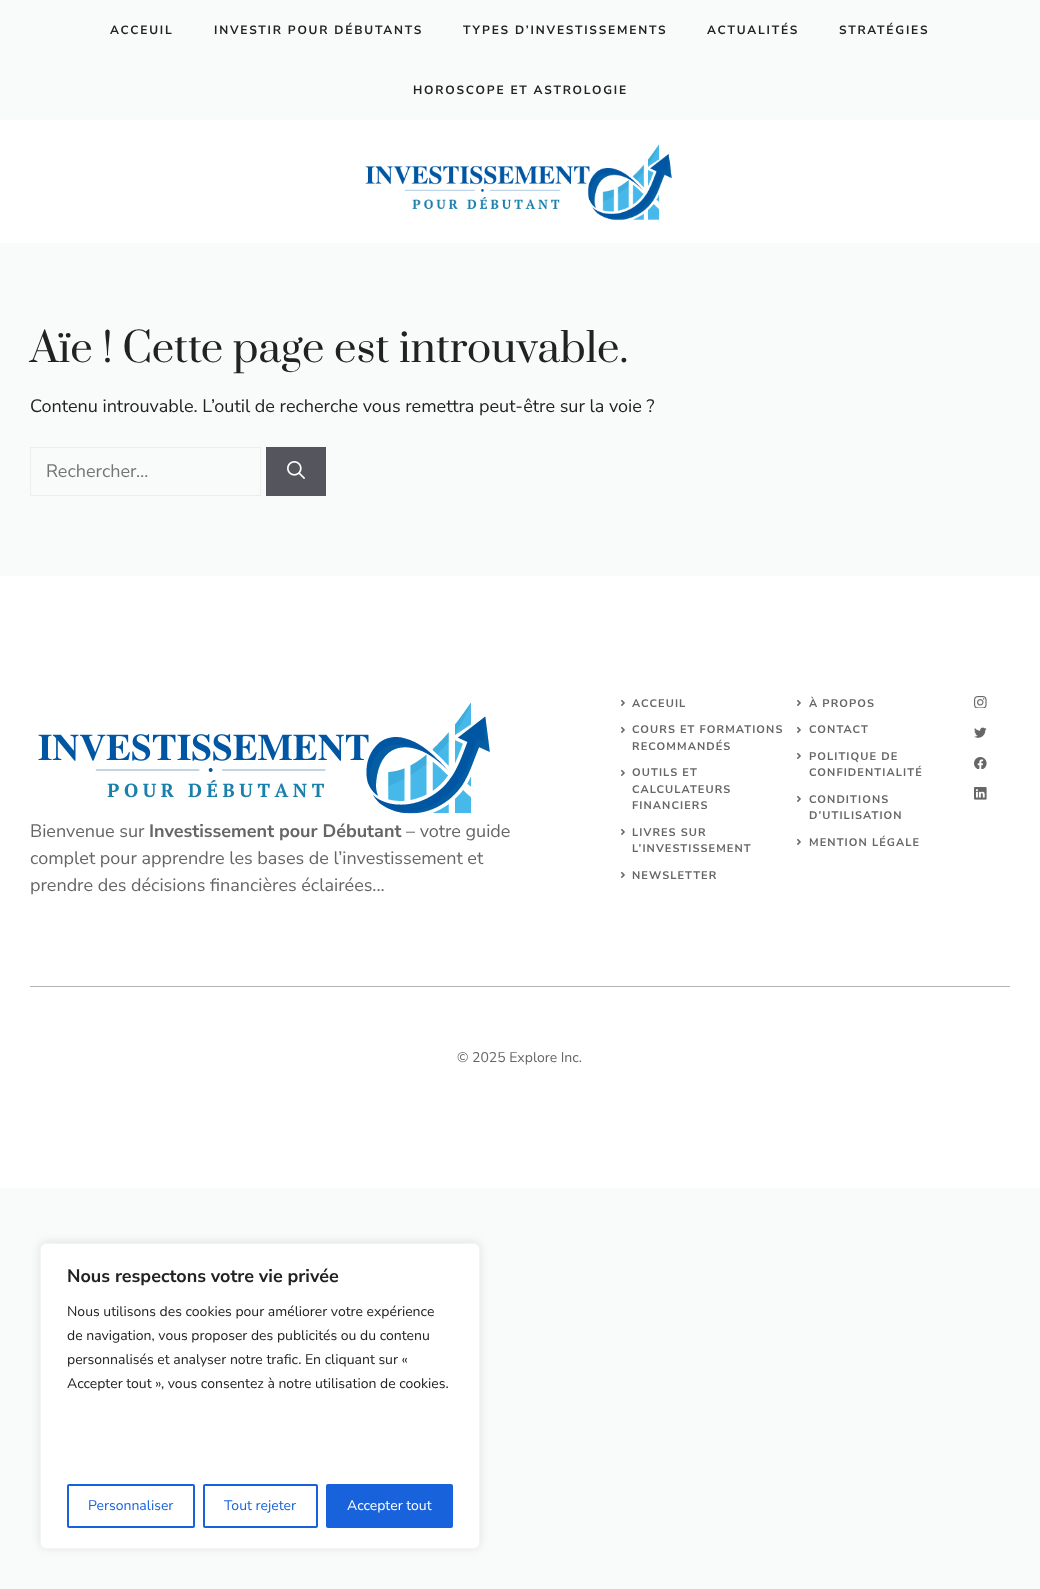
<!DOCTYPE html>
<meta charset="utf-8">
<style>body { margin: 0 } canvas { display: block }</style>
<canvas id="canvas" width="1040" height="1589"></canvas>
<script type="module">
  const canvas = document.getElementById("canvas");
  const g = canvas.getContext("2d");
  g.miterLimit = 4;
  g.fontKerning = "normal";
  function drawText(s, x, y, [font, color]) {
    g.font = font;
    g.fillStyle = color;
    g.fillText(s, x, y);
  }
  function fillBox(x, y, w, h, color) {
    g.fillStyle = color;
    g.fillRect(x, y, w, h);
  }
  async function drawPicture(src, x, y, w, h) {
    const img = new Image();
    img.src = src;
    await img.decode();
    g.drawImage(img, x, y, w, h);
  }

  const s1 = ["bold 12px Nunito Sans", "#222222"];
  const s2 = ["40px Prata", "#222222"];
  const s3 = ["18px Nunito Sans", "#222222"];
  const s4 = ["18px Nunito Sans", "#757575"];
  const s5 = ["18px Nunito Sans", "#666666"];
  const s6 = ["bold 18px Nunito Sans", "#666666"];
  const s7 = ["bold 11px Nunito Sans", "#666666"];
  const s8 = ["14px Nunito Sans", "#666666"];
  const s9 = ["bold 18px Nunito Sans", "#222222"];
  const s10 = ["14px Nunito Sans", "#222222"];
  const s11 = ["14px Nunito Sans", "#1863DC"];
  const s12 = ["14px Nunito Sans", "#FFFFFF"];

  fillBox(0, 0, 1040, 1589, "#F9FAFA");
  g.letterSpacing = "1.8px";
  drawText("ACCEUIL", 110, 34, s1);
  drawText("INVESTIR POUR DÉBUTANTS", 214, 34, s1);
  drawText("TYPES D’INVESTISSEMENTS", 463, 34, s1);
  drawText("ACTUALITÉS", 707, 34, s1);
  drawText("STRATÉGIES", 839, 34, s1);
  drawText("HOROSCOPE ET ASTROLOGIE", 413, 94, s1);
  fillBox(0, 120, 1040, 123, "#FFFFFF");
  await drawPicture("pic1.png", 365, 144, 307, 77);
  g.letterSpacing = "0px";
  drawText("Aïe ! Cette page est introuvable.", 30, 362, s2);
  drawText("Contenu introuvable. L’outil de recherche vous remettra peut-être sur la voie ?", 30, 412, s3);
  g.strokeStyle = "#EBEDF0";
  g.strokeRect(30.5, 447.5, 230, 48);
  drawText("Rechercher…", 46, 477, s4);
  fillBox(266, 447, 60, 49, "#55555E");
  await drawPicture("pic2.png", 287, 461, 18, 18);
  fillBox(0, 576, 1040, 612, "#FFFFFF");
  await drawPicture("pic3.png", 38, 702, 452, 112);
  drawText("Bienvenue sur", 30, 837, s5);
  drawText("Investissement pour Débutant", 149, 837, s6);
  drawText("– votre guide", 406, 837, s5);
  drawText("complet pour apprendre les bases de l’investissement et", 30, 864, s5);
  drawText("prendre des décisions financières éclairées...", 30, 891, s5);
  await drawPicture("pic4.png", 621, 699, 4, 7);
  g.letterSpacing = "1.1px";
  drawText("ACCEUIL", 632, 707, s7);
  await drawPicture("pic4.png", 621, 726, 4, 7);
  drawText("COURS ET FORMATIONS", 632, 733, s7);
  drawText("RECOMMANDÉS", 632, 750, s7);
  await drawPicture("pic4.png", 621, 769, 4, 7);
  drawText("OUTILS ET", 632, 776, s7);
  drawText("CALCULATEURS", 632, 793, s7);
  drawText("FINANCIERS", 632, 809, s7);
  await drawPicture("pic4.png", 621, 828, 4, 7);
  drawText("LIVRES SUR", 632, 836, s7);
  drawText("L’INVESTISSEMENT", 632, 852, s7);
  await drawPicture("pic4.png", 621, 871, 4, 7);
  drawText("NEWSLETTER", 632, 879, s7);
  await drawPicture("pic4.png", 797, 699, 4, 7);
  drawText("À PROPOS", 809, 707, s7);
  await drawPicture("pic4.png", 797, 726, 4, 7);
  drawText("CONTACT", 809, 733, s7);
  await drawPicture("pic4.png", 797, 752, 4, 7);
  drawText("POLITIQUE DE", 809, 760, s7);
  drawText("CONFIDENTIALITÉ", 809, 776, s7);
  await drawPicture("pic4.png", 797, 795, 4, 7);
  drawText("CONDITIONS", 809, 803, s7);
  drawText("D’UTILISATION", 809, 819, s7);
  await drawPicture("pic4.png", 797, 838, 4, 7);
  drawText("MENTION LÉGALE", 809, 846, s7);
  await drawPicture("pic5.png", 974, 696, 13, 12);
  await drawPicture("pic6.png", 974, 727, 13, 11);
  await drawPicture("pic7.png", 974, 757, 13, 12);
  await drawPicture("pic8.png", 974, 787, 13, 13);
  fillBox(30, 986, 980, 1, "#B3B3B3");
  g.letterSpacing = "0px";
  drawText("© 2025 Explore Inc.", 457, 1062, s8);
  g.fillStyle = "rgba(172, 171, 171, 0.3)";
  g.filter = "blur(5px)";
  g.beginPath();
  g.roundRect(40, 1242, 440, 306, 6);
  g.fill();
  g.filter = "none";
  g.fillStyle = "#FFFFFF";
  g.beginPath();
  g.roundRect(40.5, 1243.5, 439, 305, 5.5);
  g.fill();
  g.strokeStyle = "#F4F4F4";
  g.stroke();
  drawText("Nous respectons votre vie privée", 67, 1282, s9);
  drawText("Nous utilisons des cookies pour améliorer votre expérience", 67, 1316, s10);
  drawText("de navigation, vous proposer des publicités ou du contenu", 67, 1340, s10);
  drawText("personnalisés et analyser notre trafic. En cliquant sur «", 67, 1364, s10);
  drawText("Accepter tout », vous consentez à notre utilisation de cookies.", 67, 1388, s10);
  g.beginPath();
  g.roundRect(68, 1485, 126, 42, 1);
  g.strokeStyle = "#1863DC";
  g.lineWidth = 2;
  g.stroke();
  drawText("Personnaliser", 88, 1510, s11);
  g.beginPath();
  g.roundRect(204, 1485, 113, 42, 1);
  g.stroke();
  drawText("Tout rejeter", 224, 1510, s11);
  g.beginPath();
  g.roundRect(327, 1485, 125, 42, 1);
  g.fill();
  g.stroke();
  drawText("Accepter tout", 347, 1510, s12);
</script>
